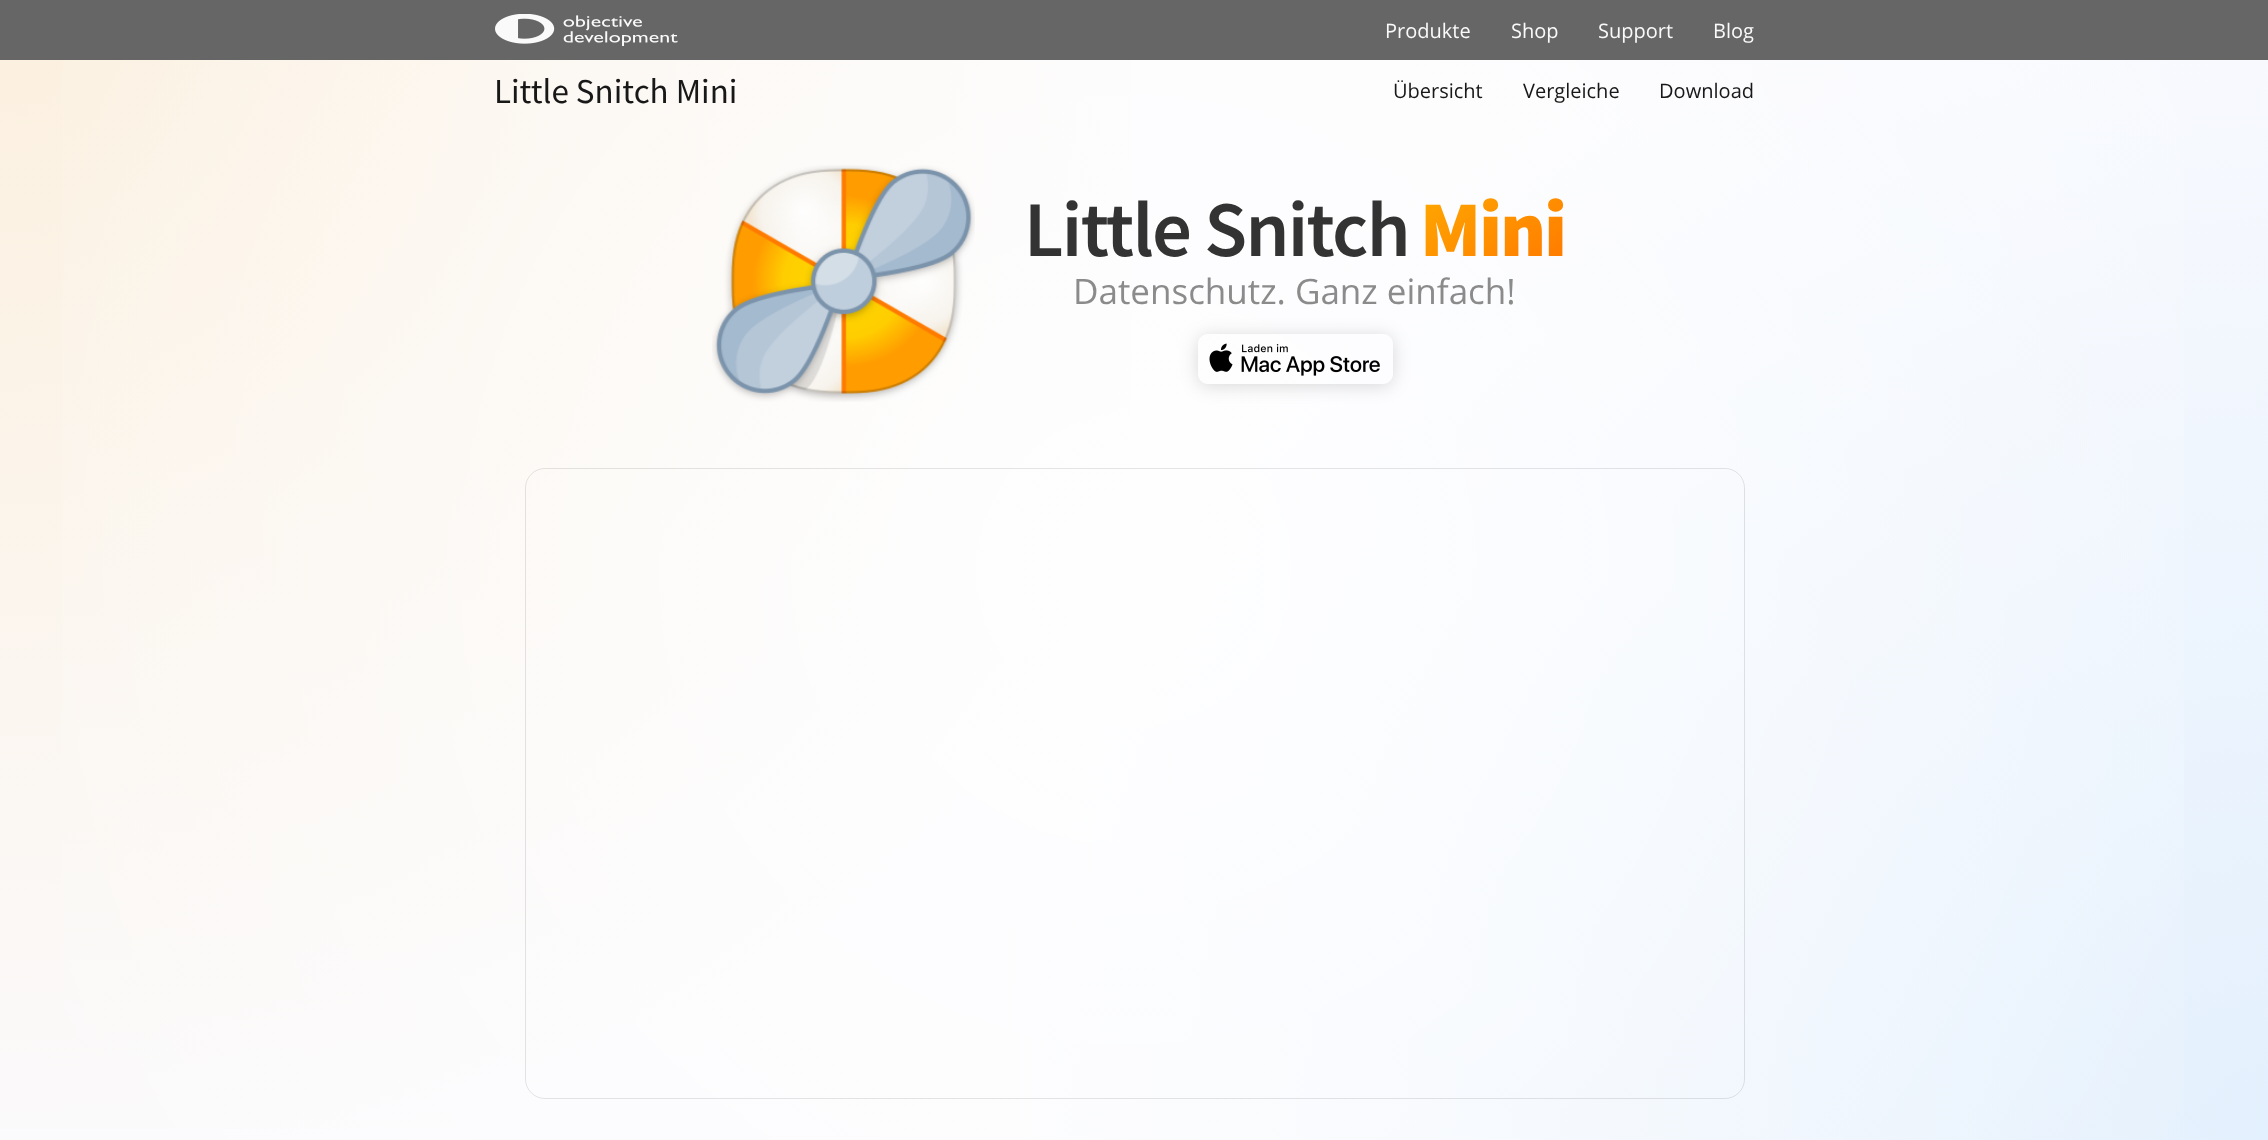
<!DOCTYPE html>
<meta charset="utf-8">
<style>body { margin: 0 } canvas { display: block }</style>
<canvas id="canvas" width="2268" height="1140"></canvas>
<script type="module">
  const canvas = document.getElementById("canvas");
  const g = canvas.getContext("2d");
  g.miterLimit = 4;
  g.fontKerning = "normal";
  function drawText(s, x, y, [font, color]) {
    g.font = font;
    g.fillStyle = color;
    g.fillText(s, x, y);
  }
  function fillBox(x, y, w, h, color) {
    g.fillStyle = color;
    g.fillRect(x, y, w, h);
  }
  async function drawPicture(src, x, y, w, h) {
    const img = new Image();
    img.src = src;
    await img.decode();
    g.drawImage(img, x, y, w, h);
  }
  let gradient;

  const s1 = ["20px Open Sans", "#FAFAFA"];
  const s2 = ["35px Source Sans Pro", "#181818"];
  const s3 = ["20px Open Sans", "#181818"];
  const s4 = ["600 78.75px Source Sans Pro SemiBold", "#333333"];
  const s5 = ["35px Open Sans", "#8B8B8B"];

  fillBox(0, 0, 2268, 1140, "#FFFFFF");
  fillBox(0, 0, 2268, 60, "#666666");
  await drawPicture("pic1.png", 495, 14, 183, 32);
  drawText("Produkte", 1385, 38, s1);
  drawText("Shop", 1511, 38, s1);
  drawText("Support", 1598, 38, s1);
  drawText("Blog", 1713, 38, s1);
  gradient = g.createRadialGradient(2269, 1140, 0, 2269, 1140, 2539);
  gradient.addColorStop(0, "#E3F0FD");
  gradient.addColorStop(0.5, "#FBFBFE");
  g.fillStyle = gradient;
  g.fillRect(0, 60, 2268, 1080);
  gradient = g.createRadialGradient(0, 0, 0, 0, 0, 2539);
  gradient.addColorStop(0, "rgba(255, 196, 97, 0.2)");
  gradient.addColorStop(0.5, "rgba(255, 196, 97, 0)");
  g.fillStyle = gradient;
  g.fillRect(0, 60, 1131, 1069);
  gradient = g.createRadialGradient(1134, 570, 0, 1134, 570, 1270);
  gradient.addColorStop(0, "rgba(255, 255, 255, 0.8)");
  gradient.addColorStop(1, "rgba(255, 255, 255, 0)");
  g.fillStyle = gradient;
  g.fillRect(62, 60, 2122, 1080);
  drawText("Little Snitch Mini", 494, 103, s2);
  drawText("Übersicht", 1393, 98, s3);
  drawText("Vergleiche", 1523, 98, s3);
  drawText("Download", 1659, 98, s3);
  await drawPicture("pic2.png", 712, 165, 263, 237);
  g.letterSpacing = "-1.75px";
  drawText("Little Snitch", 1024, 256, s4);
  g.font = "900 78.75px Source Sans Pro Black";
  gradient = g.createLinearGradient(1420, 179, 1512, 314);
  gradient.addColorStop(0, "#FFAC00");
  gradient.addColorStop(1, "#FF7600");
  g.fillStyle = gradient;
  g.fillText("Mini", 1420, 256);
  g.letterSpacing = "0px";
  drawText("Datenschutz. Ganz einfach!", 1073, 304, s5);
  g.save();
  g.beginPath();
  g.moveTo(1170, 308);
  g.lineTo(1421, 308);
  g.lineTo(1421, 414);
  g.lineTo(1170, 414);
  g.closePath();
  g.moveTo(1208, 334);
  g.lineTo(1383, 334);
  g.bezierCurveTo(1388.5, 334, 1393, 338.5, 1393, 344);
  g.lineTo(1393, 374);
  g.bezierCurveTo(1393, 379.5, 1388.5, 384, 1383, 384);
  g.lineTo(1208, 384);
  g.bezierCurveTo(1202.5, 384, 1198, 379.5, 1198, 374);
  g.lineTo(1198, 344);
  g.bezierCurveTo(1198, 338.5, 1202.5, 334, 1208, 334);
  g.closePath();
  g.clip("evenodd");
  g.fillStyle = "rgba(0, 0, 0, 0.15)";
  g.filter = "blur(9px)";
  g.beginPath();
  g.roundRect(1198, 336, 195, 50, 10);
  g.fill();
  g.filter = "none";
  g.restore();
  await drawPicture("pic3.png", 1209, 343, 171, 33);
  g.beginPath();
  g.roundRect(525.5, 468.5, 1219, 630, 19.5);
  g.strokeStyle = "rgba(0, 0, 0, 0.1)";
  g.stroke();
</script>
